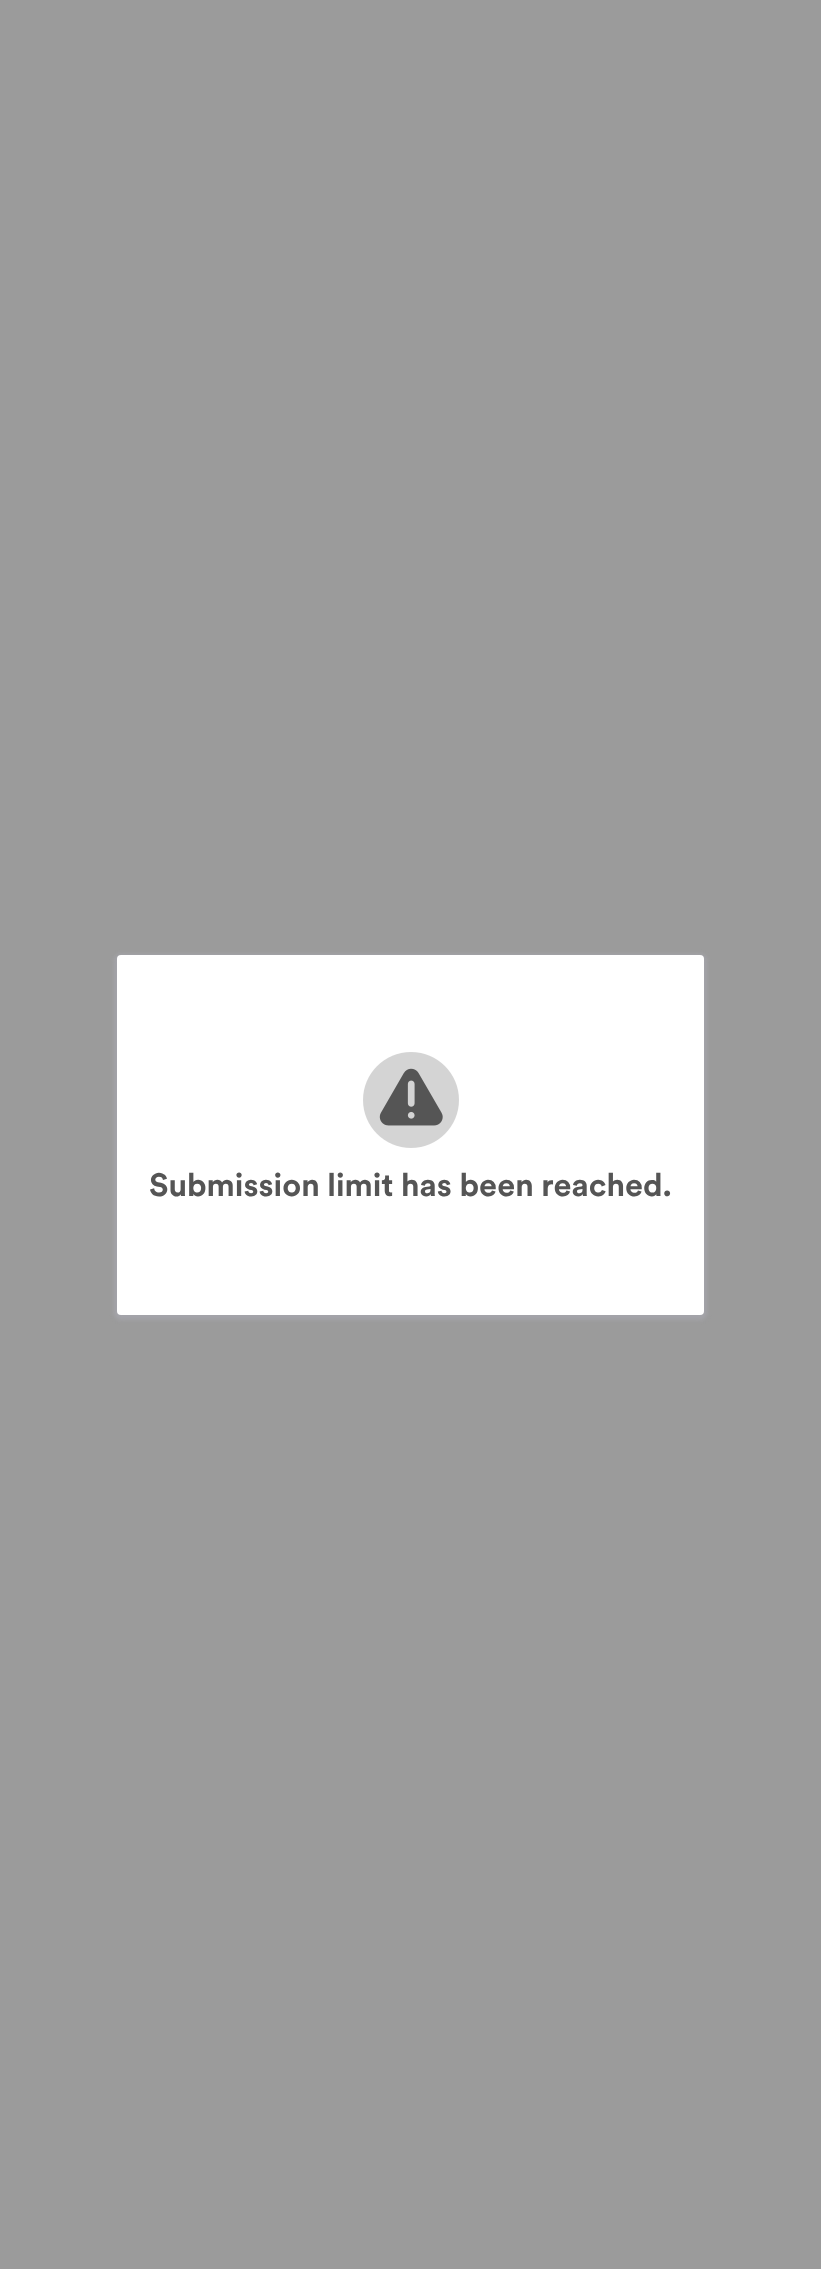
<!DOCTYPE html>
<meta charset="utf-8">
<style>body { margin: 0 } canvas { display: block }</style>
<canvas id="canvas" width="821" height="2269"></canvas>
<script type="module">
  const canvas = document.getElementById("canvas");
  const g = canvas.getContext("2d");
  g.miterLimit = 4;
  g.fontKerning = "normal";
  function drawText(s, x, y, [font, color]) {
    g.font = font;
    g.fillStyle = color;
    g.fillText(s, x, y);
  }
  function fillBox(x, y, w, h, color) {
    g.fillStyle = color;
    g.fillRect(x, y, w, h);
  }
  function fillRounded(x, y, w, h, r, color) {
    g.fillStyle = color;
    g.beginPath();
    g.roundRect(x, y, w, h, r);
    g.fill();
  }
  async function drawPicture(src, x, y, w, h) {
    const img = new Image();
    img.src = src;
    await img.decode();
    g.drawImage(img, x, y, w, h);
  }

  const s1 = ["bold 32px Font", "#555555"];

  fillBox(0, 0, 821, 2269, "#9B9B9B");
  g.fillStyle = "rgba(181, 182, 201, 0.33)";
  g.filter = "blur(2px)";
  g.beginPath();
  g.roundRect(114, 954, 593, 366, 7);
  g.fill();
  g.filter = "none";
  fillRounded(117, 955, 587, 360, 4, "#FFFFFF");
  await drawPicture("pic1.png", 363, 1052, 96, 96);
  drawText("Submission limit has been reached.", 149, 1196, s1);
</script>
